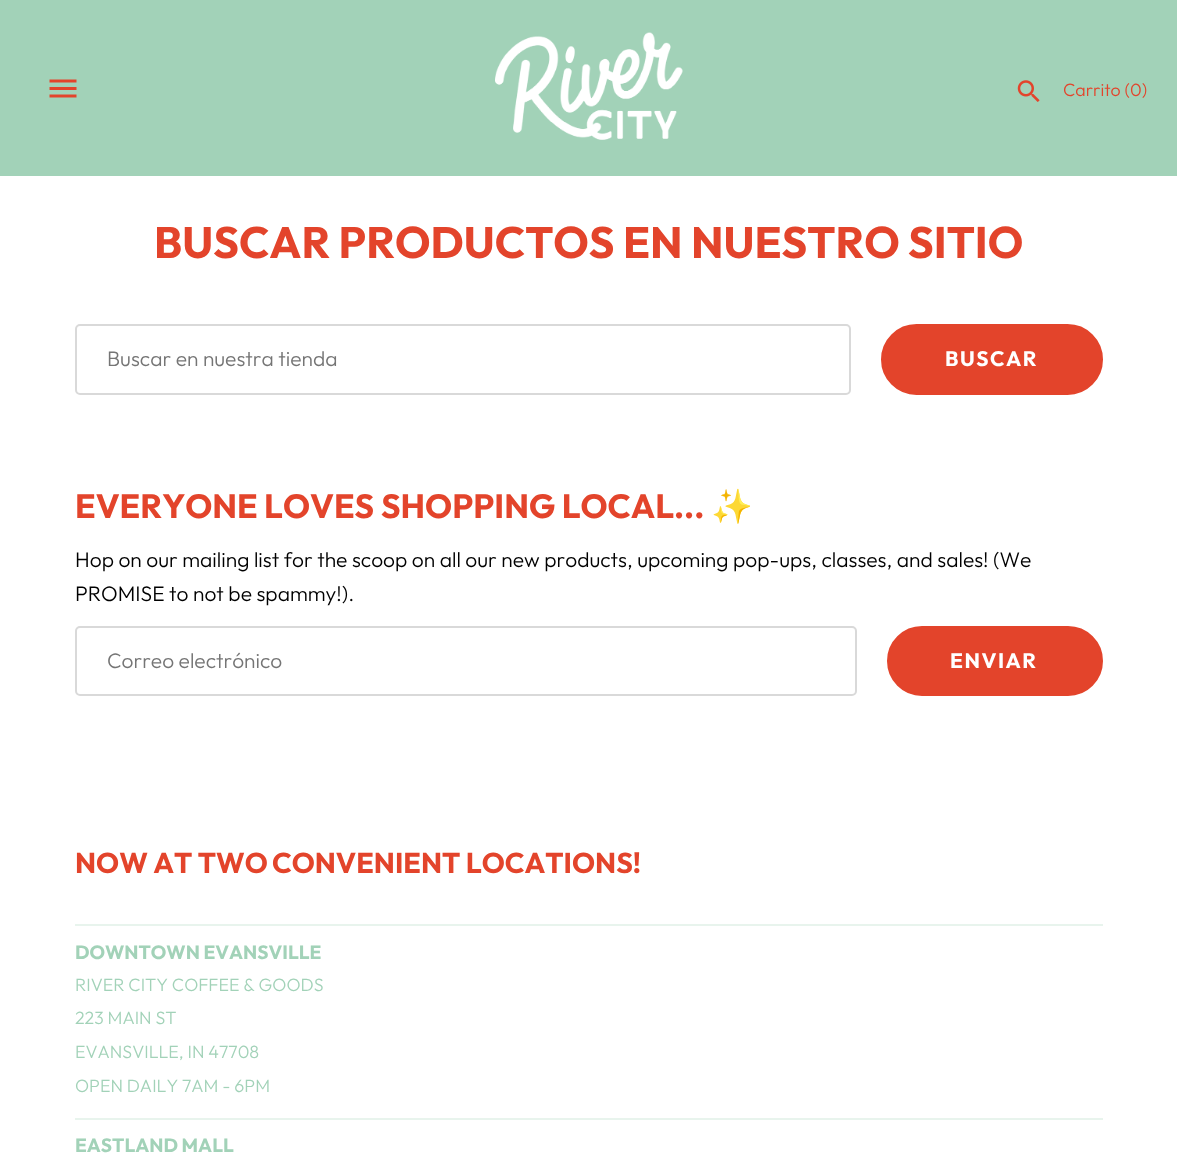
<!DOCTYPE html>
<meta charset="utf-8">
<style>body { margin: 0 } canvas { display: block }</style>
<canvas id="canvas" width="1177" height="1174"></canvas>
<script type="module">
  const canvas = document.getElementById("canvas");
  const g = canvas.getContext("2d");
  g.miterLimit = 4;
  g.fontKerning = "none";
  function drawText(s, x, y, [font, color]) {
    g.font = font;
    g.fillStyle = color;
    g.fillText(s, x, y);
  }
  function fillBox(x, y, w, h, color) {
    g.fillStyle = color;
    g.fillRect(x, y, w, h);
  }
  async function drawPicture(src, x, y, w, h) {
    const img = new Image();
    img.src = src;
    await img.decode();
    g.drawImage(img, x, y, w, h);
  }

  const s1 = ["300 17.8px Outfit", "#E3442B"];
  const s2 = ["bold 44.1px Outfit", "#E3442B"];
  const s3 = ["300 21px Outfit", "#757575"];
  const s4 = ["bold 21px Outfit", "#FFFFFF"];
  const s5 = ["bold 33.6px Outfit", "#E3442B"];
  const s6 = ["bold 33.6px Noto Color Emoji", "#E3442B"];
  const s7 = ["300 21px Outfit", "#000000"];
  const s8 = ["bold 28.6px Outfit", "#E3442B"];
  const s9 = ["bold 19.25px Outfit", "#A2D2B8"];
  const s10 = ["300 17.8px Outfit", "#A2D2B8"];

  fillBox(0, 0, 1177, 1174, "#FFFFFF");
  fillBox(0, 0, 1177, 176, "#A2D2B8");
  await drawPicture("pic1.png", 49, 79, 28, 19);
  await drawPicture("pic2.png", 495, 32, 188, 108);
  await drawPicture("pic3.png", 1017, 80, 23, 22);
  drawText("Carrito (0)", 1063, 96, s1);
  drawText("BUSCAR PRODUCTOS EN NUESTRO", 154, 258, s2);
  drawText("SITIO", 908, 258, s2);
  g.beginPath();
  g.roundRect(76, 325, 774, 69, 4);
  g.strokeStyle = "#D9D9D9";
  g.lineWidth = 2;
  g.stroke();
  drawText("Buscar en nuestra tienda", 107, 366, s3);
  g.fillStyle = "#E3442B";
  g.beginPath();
  g.roundRect(882, 325, 220, 69, 34.5);
  g.fill();
  g.strokeStyle = "#E3442B";
  g.stroke();
  g.letterSpacing = "1.5px";
  drawText("BUSCAR", 945, 366, s4);
  g.letterSpacing = "0px";
  drawText("EVERYONE LOVES", 75, 518, s5);
  drawText("SHOPPING LOCAL...", 381, 518, s5);
  drawText("✨", 711, 518, s6);
  drawText("Hop on our mailing list for the scoop on all our new products, upcoming pop-ups, classes, and sales! (We", 75, 567, s7);
  drawText("PROMISE to not be spammy!).", 75, 601, s7);
  g.beginPath();
  g.roundRect(76, 627, 780, 68, 4);
  g.strokeStyle = "#D9D9D9";
  g.stroke();
  drawText("Correo electrónico", 107, 668, s3);
  g.fillStyle = "#E3442B";
  g.beginPath();
  g.roundRect(888, 627, 214, 68, 34);
  g.fill();
  g.strokeStyle = "#E3442B";
  g.stroke();
  g.letterSpacing = "1.5px";
  drawText("ENVIAR", 950, 668, s4);
  fillBox(75, 924, 1028, 2, "#E8F4ED");
  g.letterSpacing = "0px";
  drawText("NOW AT TWO", 75, 873, s8);
  drawText("CONVENIENT LOCATIONS!", 272, 873, s8);
  fillBox(75, 1118, 1028, 2, "#E8F4ED");
  drawText("DOWNTOWN EVANSVILLE", 75, 959, s9);
  drawText("RIVER CITY COFFEE & GOODS", 75, 991, s10);
  drawText("223 MAIN ST", 75, 1024, s10);
  drawText("EVANSVILLE, IN 47708", 75, 1058, s10);
  drawText("OPEN DAILY 7AM - 6PM", 75, 1092, s10);
  drawText("EASTLAND MALL", 75, 1152, s9);
</script>
